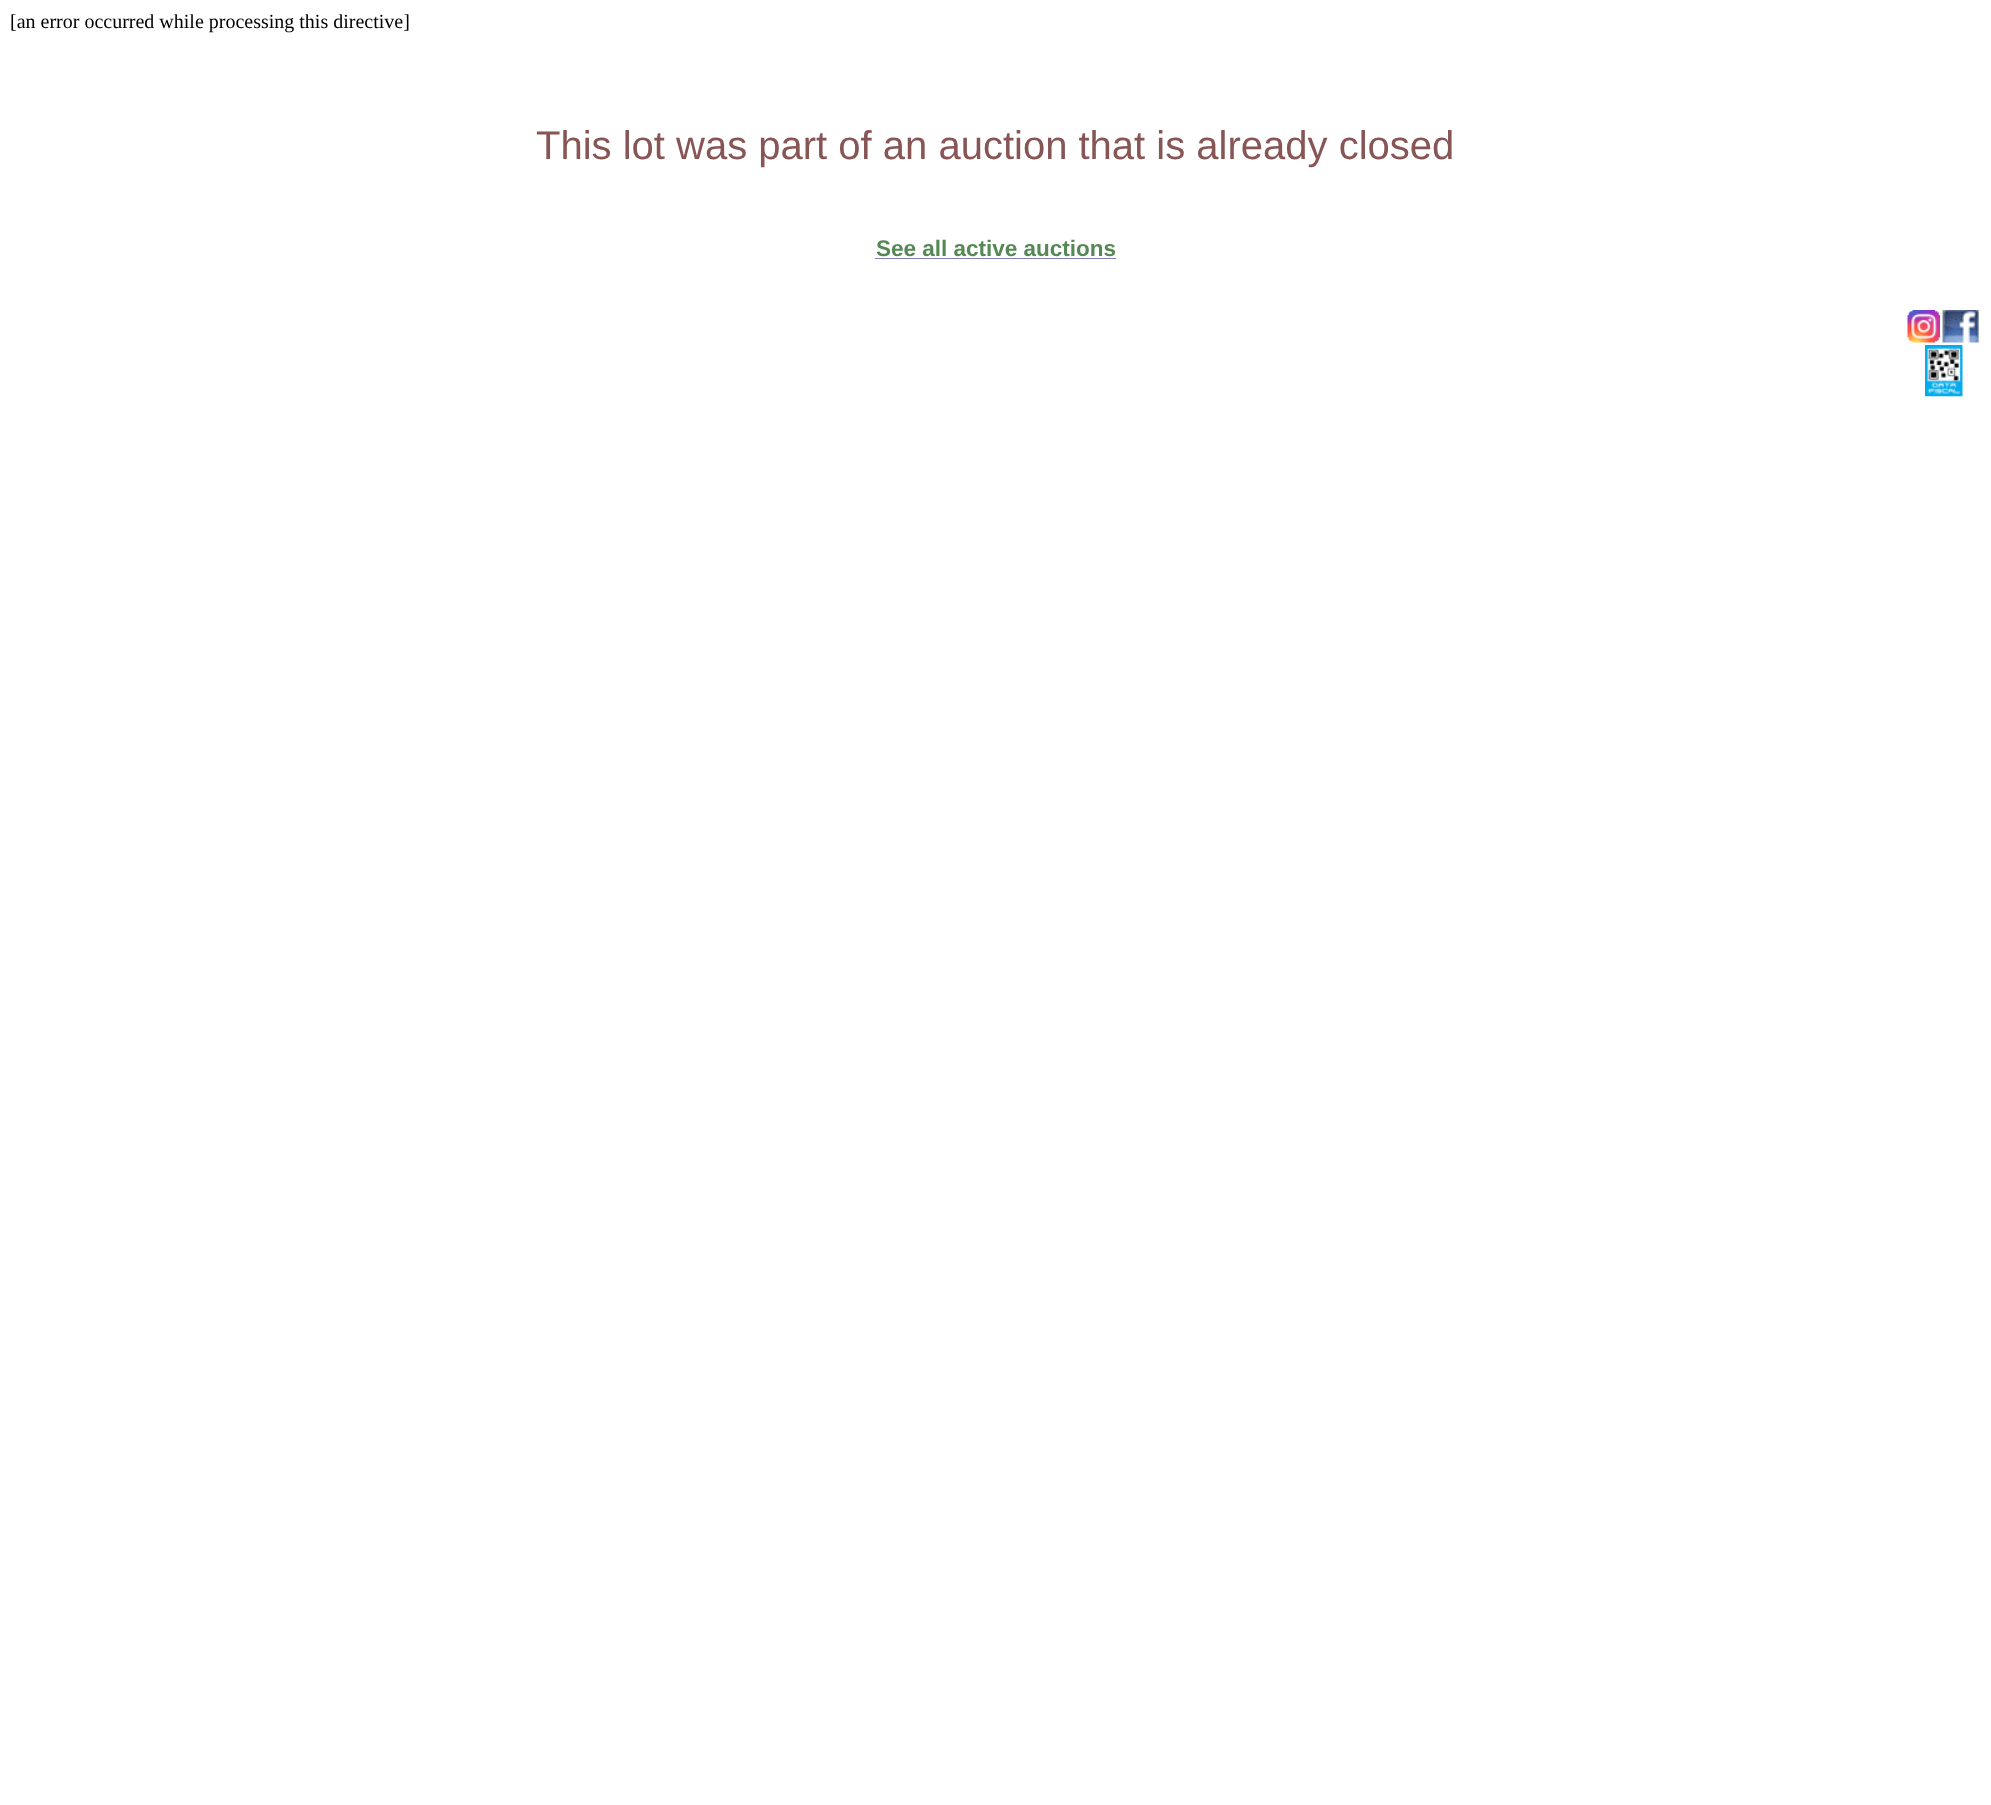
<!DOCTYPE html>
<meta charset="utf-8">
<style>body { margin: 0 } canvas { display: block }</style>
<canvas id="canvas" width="1991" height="1805"></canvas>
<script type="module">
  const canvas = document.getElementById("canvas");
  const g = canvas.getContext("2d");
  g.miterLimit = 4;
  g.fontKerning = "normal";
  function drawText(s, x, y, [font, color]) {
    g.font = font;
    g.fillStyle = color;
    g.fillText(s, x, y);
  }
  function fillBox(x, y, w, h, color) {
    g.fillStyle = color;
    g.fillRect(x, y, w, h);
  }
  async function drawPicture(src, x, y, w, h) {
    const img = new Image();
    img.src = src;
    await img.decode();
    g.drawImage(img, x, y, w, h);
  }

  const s1 = ["20px Liberation Serif", "#000000"];
  const s2 = ["40px Liberation Sans", "#885555"];
  const s3 = ["bold 22.5px Liberation Sans", "#558855"];

  fillBox(0, 0, 1991, 1805, "#FFFFFF");
  drawText("[an error occurred while processing this directive]", 10, 28, s1);
  drawText("This lot was part of an auction that is already closed", 536, 159, s2);
  drawText("See all active auctions", 876, 256, s3);
  fillBox(875, 258, 241, 1, "#8080C0");
  await drawPicture("pic1.png", 1907, 310, 33, 33);
  await drawPicture("pic2.png", 1942, 310, 37, 33);
  await drawPicture("pic3.png", 1925, 345, 38, 52);
</script>
